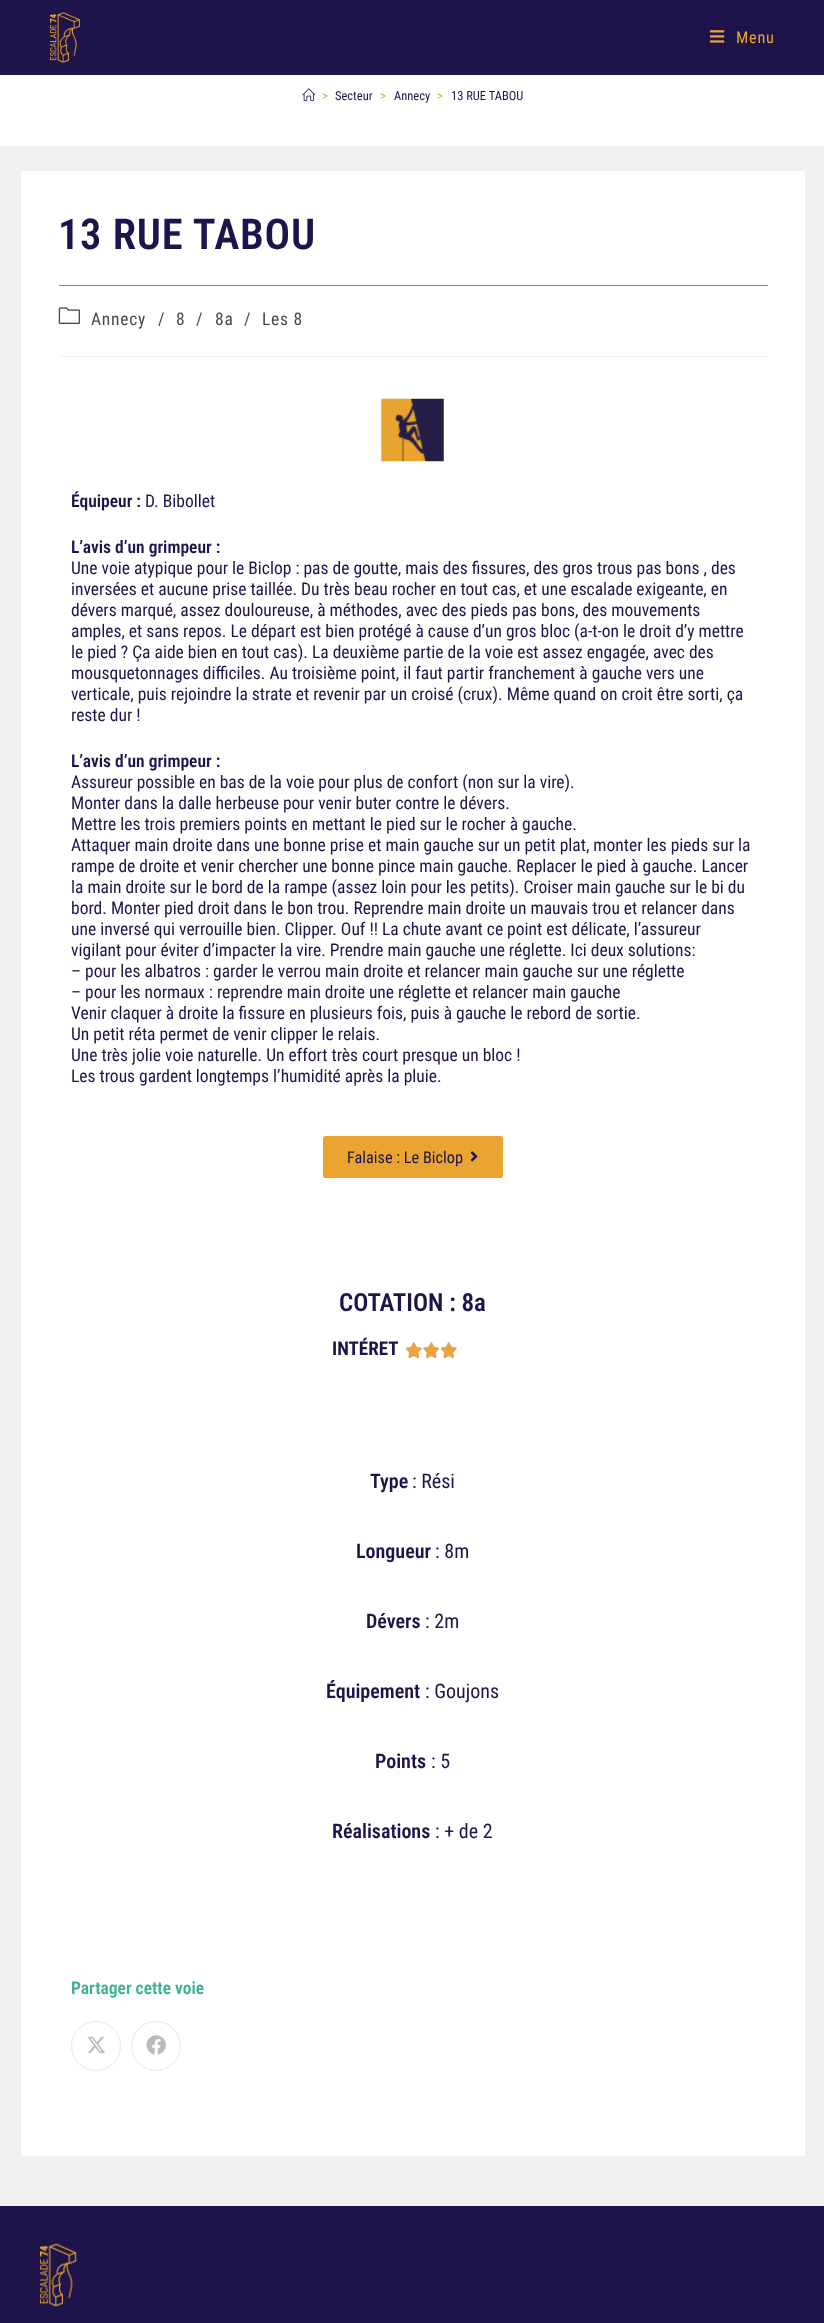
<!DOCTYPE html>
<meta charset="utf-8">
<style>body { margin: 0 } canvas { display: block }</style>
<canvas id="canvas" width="824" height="2323"></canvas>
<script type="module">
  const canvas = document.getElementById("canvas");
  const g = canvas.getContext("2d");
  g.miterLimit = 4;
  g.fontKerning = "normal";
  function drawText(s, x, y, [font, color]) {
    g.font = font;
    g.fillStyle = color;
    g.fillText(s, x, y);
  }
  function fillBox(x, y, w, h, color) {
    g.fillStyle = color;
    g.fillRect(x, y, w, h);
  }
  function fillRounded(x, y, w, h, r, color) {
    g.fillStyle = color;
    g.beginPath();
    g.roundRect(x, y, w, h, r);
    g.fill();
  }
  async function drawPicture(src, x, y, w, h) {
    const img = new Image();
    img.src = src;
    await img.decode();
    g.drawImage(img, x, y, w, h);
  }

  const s1 = ["16.25px Roboto Condensed", "#E9A431"];
  const s2 = ["12.5px Roboto Condensed", "#E9A431"];
  const s3 = ["12.5px Roboto Condensed", "#1E144B"];
  const s4 = ["600 42.5px Roboto Condensed", "#1E144B"];
  const s5 = ["17.5px Roboto Condensed", "#4A4A4A"];
  const s6 = ["600 17.5px Roboto Condensed", "#1E144B"];
  const s7 = ["17.5px Roboto Condensed", "#1E144B"];
  const s8 = ["16.25px Roboto Condensed", "#1E144B"];
  const s9 = ["600 25px Roboto Condensed", "#1E144B"];
  const s10 = ["bold 19px Roboto Condensed", "#1E144B"];
  const s11 = ["600 20px Roboto Condensed", "#1E144B"];
  const s12 = ["20px Roboto Condensed", "#1E144B"];
  const s13 = ["600 17.5px Roboto Condensed", "#38B293"];

  fillBox(0, 0, 824, 2323, "#F1F1F1");
  fillBox(0, 0, 824, 75, "#1E144B");
  await drawPicture("pic1.png", 50, 12, 30, 51);
  await drawPicture("pic2.png", 710, 30, 15, 13);
  g.letterSpacing = "0.75px";
  drawText("Menu", 736, 43, s1);
  fillBox(0, 75, 824, 71, "#FFFFFF");
  await drawPicture("pic3.png", 302, 88, 13, 13);
  g.letterSpacing = "0px";
  drawText(">", 322, 100, s2);
  drawText("Secteur", 335, 100, s3);
  drawText(">", 380, 100, s2);
  drawText("Annecy", 394, 100, s3);
  drawText(">", 437, 100, s2);
  drawText("13 RUE TABOU", 451, 100, s3);
  fillBox(21, 171, 784, 1985, "#FFFFFF");
  fillBox(59, 285, 709, 1, "#38B293");
  g.letterSpacing = "0.75px";
  drawText("13 RUE TABOU", 58, 249, s4);
  fillBox(59, 356, 709, 1, "#F1F1F1");
  await drawPicture("pic4.png", 58, 307, 22, 17);
  drawText("Annecy", 91, 325, s5);
  drawText("/", 158, 325, s5);
  drawText("8", 176, 325, s5);
  drawText("/", 196, 325, s5);
  drawText("8a", 215, 325, s5);
  drawText("/", 244, 325, s5);
  drawText("Les 8", 262, 325, s5);
  await drawPicture("pic5.png", 381, 398, 63, 64);
  g.letterSpacing = "0px";
  drawText("Équipeur :", 71, 507, s6);
  drawText("D. Bibollet", 145, 507, s7);
  drawText("L’avis d’un grimpeur :", 71, 553, s6);
  drawText("Une voie atypique pour le Biclop : pas de goutte, mais des fissures, des gros trous pas bons , des", 71, 574, s7);
  drawText("inversées et aucune prise taillée. Du très beau rocher en tout cas, et une escalade exigeante, en", 71, 595, s7);
  drawText("dévers marqué, assez douloureuse, à méthodes, avec des pieds pas bons, des mouvements", 71, 616, s7);
  drawText("amples, et sans repos. Le départ est bien protégé à cause d’un gros bloc (a-t-on le droit d’y mettre", 71, 637, s7);
  drawText("le pied ? Ça aide bien en tout cas). La deuxième partie de la voie est assez engagée, avec des", 71, 658, s7);
  drawText("mousquetonnages difficiles. Au troisième point, il faut partir franchement à gauche vers une", 71, 679, s7);
  drawText("verticale, puis rejoindre la strate et revenir par un croisé (crux). Même quand on croit être sorti, ça", 71, 700, s7);
  drawText("reste dur !", 71, 721, s7);
  drawText("L’avis d’un grimpeur :", 71, 767, s6);
  drawText("Assureur possible en bas de la voie pour plus de confort (non sur la vire).", 71, 788, s7);
  drawText("Monter dans la dalle herbeuse pour venir buter contre le dévers.", 71, 809, s7);
  drawText("Mettre les trois premiers points en mettant le pied sur le rocher à gauche.", 71, 830, s7);
  drawText("Attaquer main droite dans une bonne prise et main gauche sur un petit plat, monter les pieds sur la", 71, 851, s7);
  drawText("rampe de droite et venir chercher une bonne pince main gauche. Replacer le pied à gauche. Lancer", 71, 872, s7);
  drawText("la main droite sur le bord de la rampe (assez loin pour les petits). Croiser main gauche sur le bi du", 71, 893, s7);
  drawText("bord. Monter pied droit dans le bon trou. Reprendre main droite un mauvais trou et relancer dans", 71, 914, s7);
  drawText("une inversé qui verrouille bien. Clipper. Ouf !! La chute avant ce point est délicate, l’assureur", 71, 935, s7);
  drawText("vigilant pour éviter d’impacter la vire. Prendre main gauche une réglette. Ici deux solutions:", 71, 956, s7);
  drawText("– pour les albatros : garder le verrou main droite et relancer main gauche sur une réglette", 71, 977, s7);
  drawText("– pour les normaux : reprendre main droite une réglette et relancer main gauche", 71, 998, s7);
  drawText("Venir claquer à droite la fissure en plusieurs fois, puis à gauche le rebord de sortie.", 71, 1019, s7);
  drawText("Un petit réta permet de venir clipper le relais.", 71, 1040, s7);
  drawText("Une très jolie voie naturelle. Un effort très court presque un bloc !", 71, 1061, s7);
  drawText("Les trous gardent longtemps l’humidité après la pluie.", 71, 1082, s7);
  fillRounded(323, 1136, 180, 42, 2.5, "#E9A431");
  drawText("Falaise : Le Biclop", 347, 1163, s8);
  await drawPicture("pic6.png", 470, 1151, 8, 11);
  drawText("COTATION : 8a", 339, 1311, s9);
  drawText("INTÉRET", 332, 1355, s10);
  await drawPicture("pic7.png", 405, 1342, 17, 17);
  await drawPicture("pic8.png", 423, 1342, 17, 17);
  await drawPicture("pic7.png", 440, 1342, 17, 17);
  drawText("Type", 370, 1488, s11);
  drawText(": Rési", 412, 1488, s12);
  drawText("Longueur", 356, 1558, s11);
  drawText(": 8m", 435, 1558, s12);
  drawText("Dévers", 366, 1628, s11);
  drawText(": 2m", 425, 1628, s12);
  drawText("Équipement", 326, 1698, s11);
  drawText(": Goujons", 425, 1698, s12);
  drawText("Points", 375, 1768, s11);
  drawText(": 5", 431, 1768, s12);
  drawText("Réalisations", 332, 1838, s11);
  drawText(": + de 2", 435, 1838, s12);
  drawText("Partager cette voie", 71, 1994, s13);
  g.beginPath();
  g.arc(96, 2046, 24.5, 0, Math.PI * 2);
  g.strokeStyle = "#E9E9E9";
  g.stroke();
  await drawPicture("pic9.png", 87, 2036, 18, 18);
  g.beginPath();
  g.arc(156, 2046, 24.5, 0, Math.PI * 2);
  g.stroke();
  await drawPicture("pic10.png", 146, 2035, 20, 20);
  fillBox(0, 2206, 824, 117, "#1E144B");
  await drawPicture("pic11.png", 40, 2243, 37, 64);
</script>
